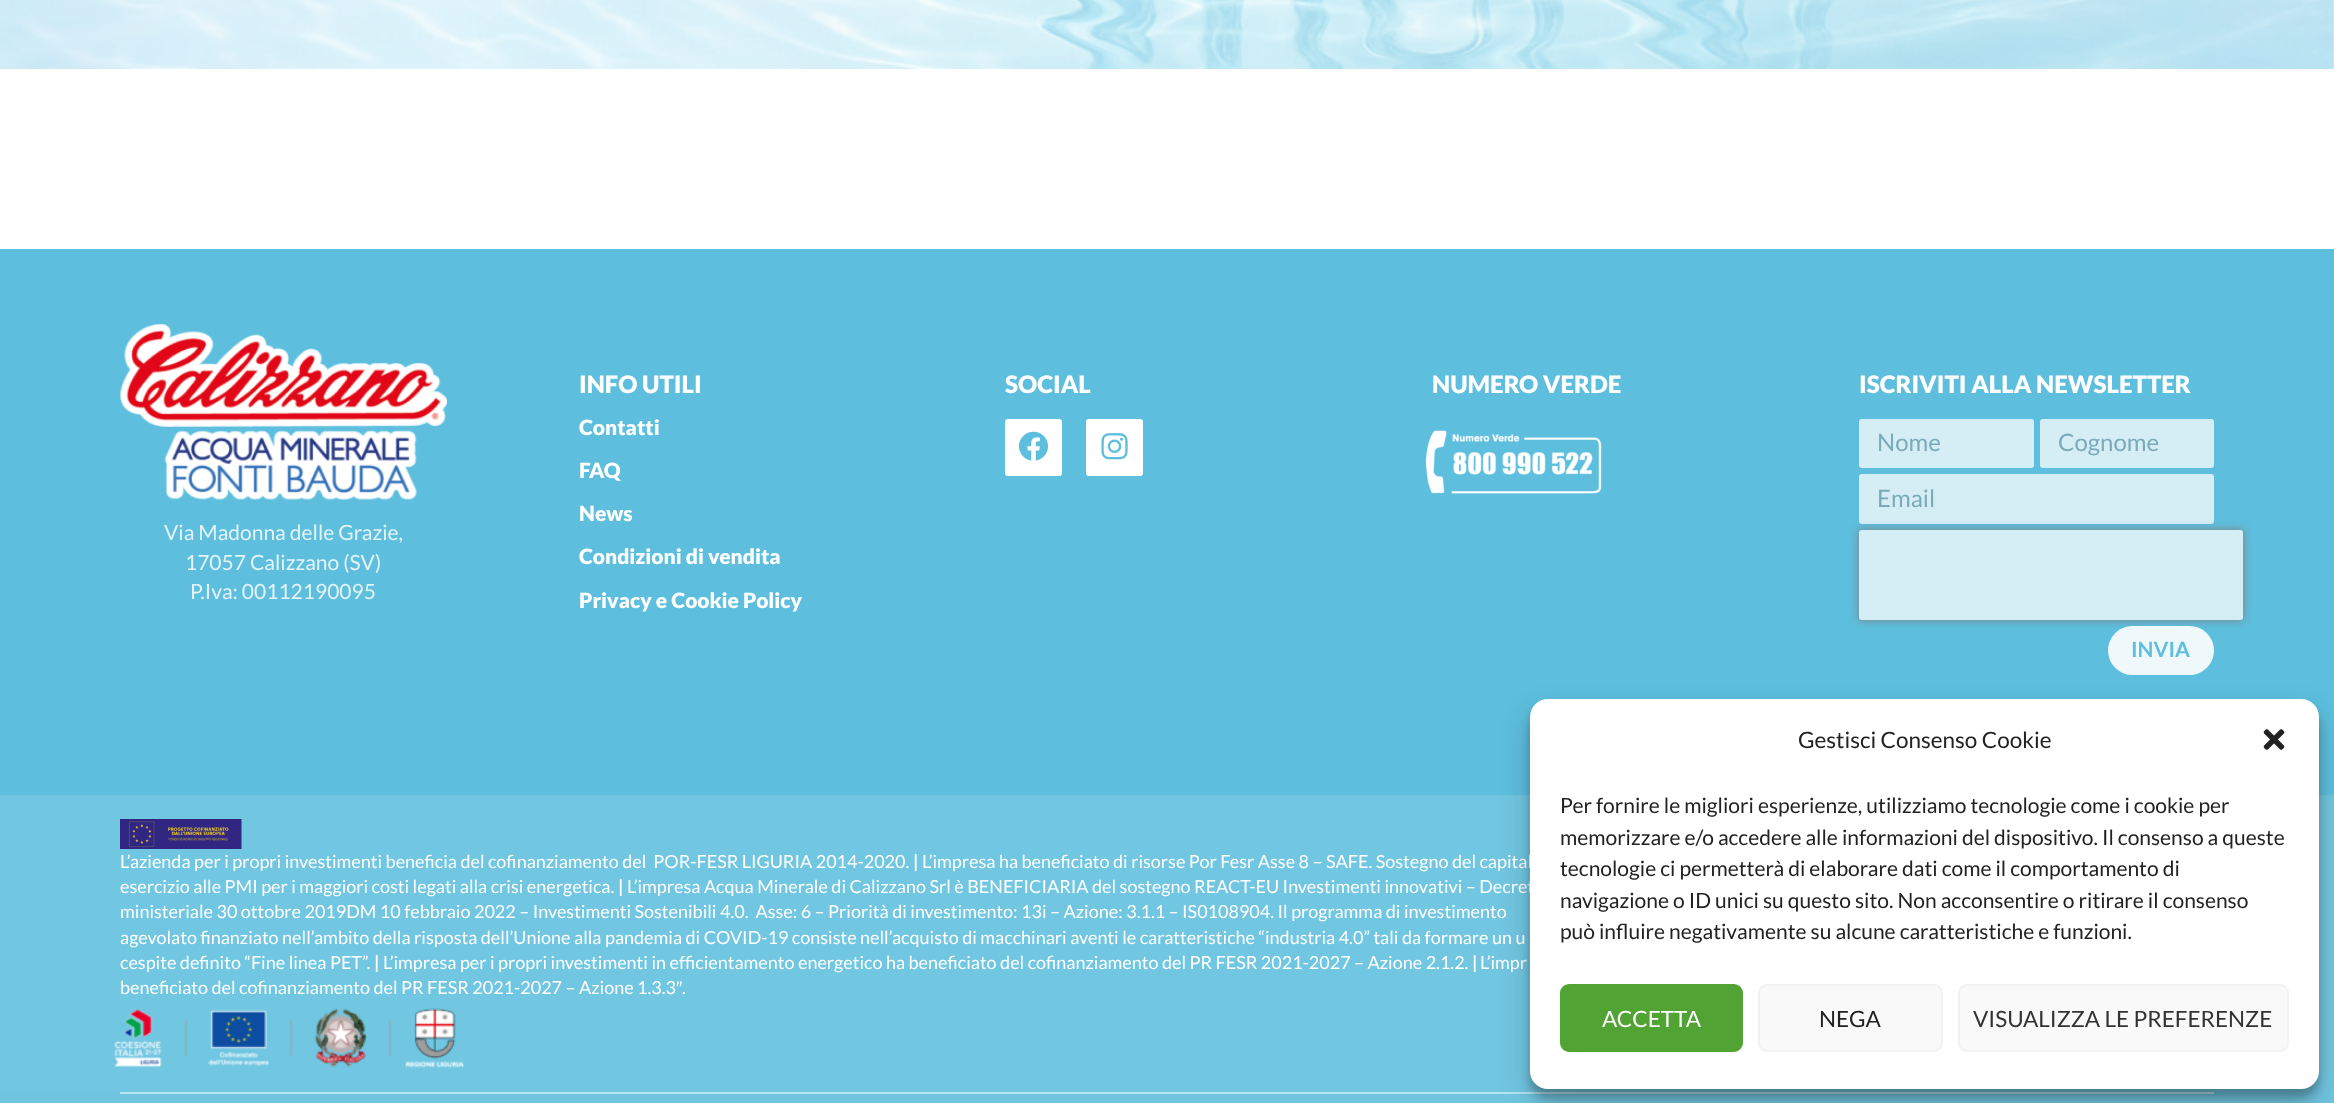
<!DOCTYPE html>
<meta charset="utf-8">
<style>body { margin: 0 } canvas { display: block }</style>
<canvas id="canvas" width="2334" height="1103"></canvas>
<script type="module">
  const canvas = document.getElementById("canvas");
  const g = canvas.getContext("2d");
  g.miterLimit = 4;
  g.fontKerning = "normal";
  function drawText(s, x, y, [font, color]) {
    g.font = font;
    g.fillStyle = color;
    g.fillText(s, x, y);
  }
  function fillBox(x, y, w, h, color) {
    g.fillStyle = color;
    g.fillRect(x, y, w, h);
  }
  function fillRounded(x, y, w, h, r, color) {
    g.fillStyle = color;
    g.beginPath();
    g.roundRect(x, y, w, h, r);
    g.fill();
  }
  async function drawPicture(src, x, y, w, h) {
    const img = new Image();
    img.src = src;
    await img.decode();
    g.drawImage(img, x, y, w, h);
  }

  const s1 = ["21px Lato", "#E3F4F9"];
  const s2 = ["900 24px Lato", "#FFFFFF"];
  const s3 = ["900 21px Lato", "#FFFFFF"];
  const s4 = ["24px Lato", "#7BAAB9"];
  const s5 = ["bold 21px Lato", "#5DBEDD"];
  const s6 = ["18px Lato", "#FFFFFF"];
  const s7 = ["bold 18px Lato", "#FFFFFF"];
  const s8 = ["18px Liberation Sans", "#FFFFFF"];
  const s9 = ["22.5px Lato", "#222222"];
  const s10 = ["21px Lato", "#222222"];
  const s11 = ["22.5px Lato", "#FFFFFF"];
  const s12 = ["22.5px Lato", "#333333"];

  fillBox(0, 0, 2334, 1103, "#FFFFFF");
  await drawPicture("pic1.png", 0, 0, 2334, 69);
  fillBox(0, 249, 2334, 546, "#5DBEDD");
  await drawPicture("pic2.png", 120, 324, 327, 176);
  drawText("Via Madonna delle Grazie,", 164, 540, s1);
  drawText("17057 Calizzano (SV)", 185, 570, s1);
  drawText("P.Iva: 00112190095", 190, 599, s1);
  drawText("INFO UTILI", 579, 393, s2);
  drawText("Contatti", 579, 435, s3);
  drawText("FAQ", 579, 478, s3);
  drawText("News", 579, 521, s3);
  drawText("Condizioni di vendita", 579, 564, s3);
  drawText("Privacy e Cookie Policy", 579, 608, s3);
  drawText("SOCIAL", 1005, 393, s2);
  fillRounded(1005, 419, 57, 57, 3, "#FFFFFF");
  await drawPicture("pic3.png", 1019, 431, 29, 30);
  fillRounded(1086, 419, 57, 57, 3, "#FFFFFF");
  await drawPicture("pic4.png", 1101, 433, 27, 27);
  drawText("NUMERO VERDE", 1432, 393, s2);
  await drawPicture("pic5.png", 1425, 430, 177, 64);
  drawText("ISCRIVITI ALLA NEWSLETTER", 1859, 393, s2);
  fillRounded(1859, 419, 175, 49, 3, "#D5EEF6");
  drawText("Nome", 1877, 451, s4);
  fillRounded(2040, 419, 174, 49, 3, "#D5EEF6");
  drawText("Cognome", 2058, 451, s4);
  fillRounded(1859, 474, 355, 50, 3, "#D5EEF6");
  drawText("Email", 1877, 507, s4);
  fillRounded(1859, 530, 384, 90, 3, "#D5EEF6");
  g.save();
  g.beginPath();
  g.moveTo(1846, 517);
  g.lineTo(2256, 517);
  g.lineTo(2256, 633);
  g.lineTo(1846, 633);
  g.closePath();
  g.moveTo(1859, 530);
  g.lineTo(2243, 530);
  g.lineTo(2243, 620);
  g.lineTo(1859, 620);
  g.closePath();
  g.clip("evenodd");
  g.fillStyle = "#808080";
  g.filter = "blur(4px)";
  g.beginPath();
  g.rect(1859, 530, 384, 90);
  g.fill();
  g.filter = "none";
  g.restore();
  fillRounded(2108, 626, 106, 49, 24.5, "rgba(255, 255, 255, 0.9)");
  drawText("INVIA", 2131, 657, s5);
  fillBox(0, 795, 2334, 297, "#71C6E1");
  await drawPicture("pic6.png", 120, 819, 122, 30);
  drawText("L’azienda per i propri investimenti beneficia del cofinanziamento del  POR-FESR LIGURIA 2014-2020.", 120, 868, s6);
  drawText("|", 913, 868, s7);
  drawText("L’impresa ha beneficiato di risorse Por Fesr Asse 8 – SAFE. Sostegno del capital", 922, 868, s6);
  drawText("esercizio alle PMI per i maggiori costi legati alla crisi energetica.", 120, 893, s6);
  drawText("|", 618, 893, s7);
  drawText("L’impresa Acqua Minerale di Calizzano Srl è BENEFICIARIA del sostegno REACT-EU Investimenti innovativi – Decret", 627, 893, s6);
  drawText("ministeriale 30 ottobre 2019DM 10 febbraio 2022 – Investimenti Sostenibili 4.0.  Asse: 6 – Priorità di investimento: 13i – Azione: 3.1.1 – IS0108904. Il programma di investimento", 120, 918, s6);
  drawText("agevolato finanziato nell’ambito della risposta dell’Unione alla pandemia di COVID-19 consiste nell’acquisto di macchinari aventi le caratteristiche “industria 4.0” tali da formare un u", 120, 944, s6);
  drawText("cespite definito “Fine linea PET”.", 120, 969, s6);
  drawText("|", 374, 969, s7);
  drawText("L’impresa per i propri investimenti in efficientamento energetico ha beneficiato del cofinanziamento del PR FESR 2021-2027 – Azione 2.1.2.", 383, 969, s6);
  drawText("|", 1472, 969, s7);
  drawText("L’impr", 1480, 969, s6);
  drawText("beneficiato del cofinanziamento del PR FESR 2021-2027 – Azione 1.3.3", 120, 994, s6);
  drawText("″", 676, 994, s8);
  drawText(".", 682, 994, s6);
  await drawPicture("pic7.png", 114, 1008, 351, 60);
  fillBox(0, 1092, 2334, 11, "#70C6E1");
  fillBox(120, 1092, 2094, 2, "#B8E3F0");
  g.fillStyle = "rgba(0, 0, 0, 0.23)";
  g.filter = "blur(4.5px)";
  g.beginPath();
  g.roundRect(1530, 708, 789, 390, 18);
  g.fill();
  g.filter = "none";
  g.fillStyle = "rgba(0, 0, 0, 0.19)";
  g.filter = "blur(15px)";
  g.beginPath();
  g.roundRect(1530, 714, 789, 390, 18);
  g.fill();
  g.filter = "none";
  fillRounded(1530, 699, 789, 390, 18, "#FFFFFF");
  drawText("Gestisci Consenso Cookie", 1798, 748, s9);
  await drawPicture("pic8.png", 2263, 729, 22, 21);
  drawText("Per fornire le migliori esperienze, utilizziamo tecnologie come i cookie per", 1560, 813, s10);
  drawText("memorizzare e/o accedere alle informazioni del dispositivo. Il consenso a queste", 1560, 845, s10);
  drawText("tecnologie ci permetterà di elaborare dati come il comportamento di", 1560, 876, s10);
  drawText("navigazione o ID unici su questo sito. Non acconsentire o ritirare il consenso", 1560, 908, s10);
  drawText("può influire negativamente su alcune caratteristiche e funzioni.", 1560, 939, s10);
  g.fillStyle = "#51A333";
  g.beginPath();
  g.roundRect(1561, 985, 181, 66, 8);
  g.fill();
  g.strokeStyle = "#51A333";
  g.lineWidth = 2;
  g.stroke();
  drawText("ACCETTA", 1602, 1027, s11);
  g.fillStyle = "#F9F9F9";
  g.beginPath();
  g.roundRect(1759, 985, 183, 66, 8);
  g.fill();
  g.strokeStyle = "#F2F2F2";
  g.stroke();
  drawText("NEGA", 1819, 1027, s9);
  g.fillStyle = "#F9F9F9";
  g.beginPath();
  g.roundRect(1959, 985, 329, 66, 8);
  g.fill();
  g.stroke();
  drawText("VISUALIZZA LE PREFERENZE", 1973, 1027, s12);
</script>
